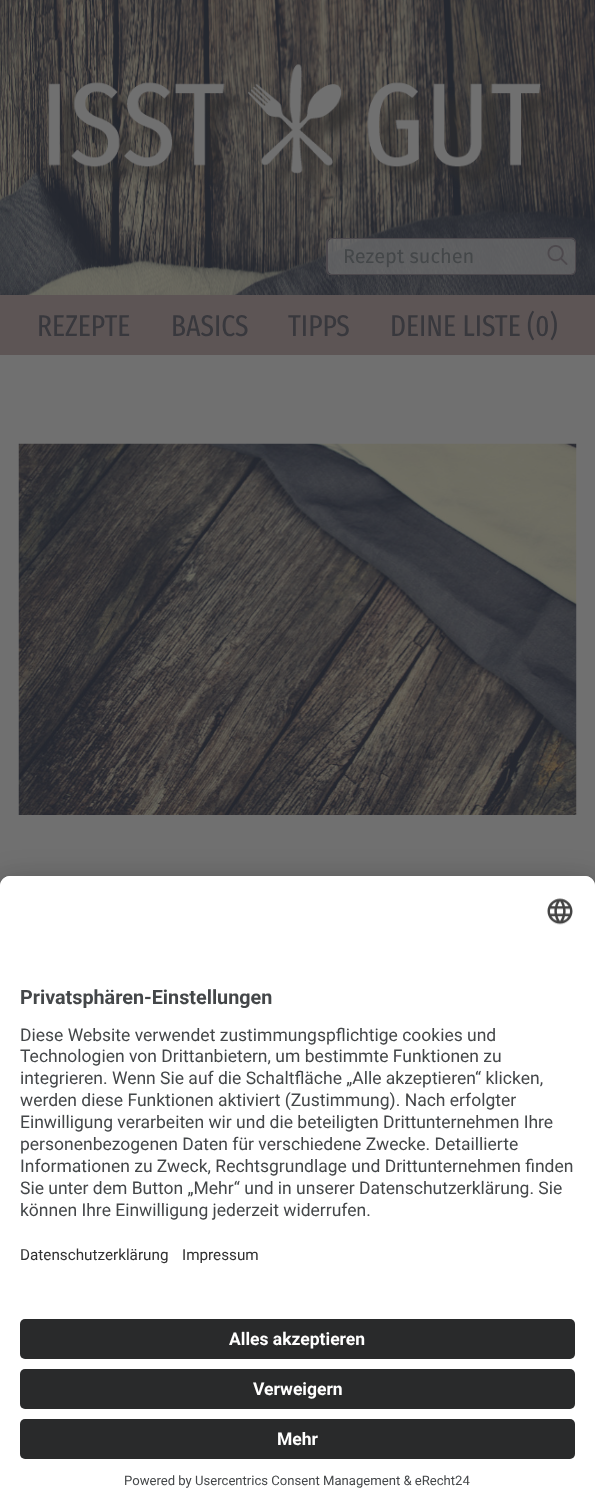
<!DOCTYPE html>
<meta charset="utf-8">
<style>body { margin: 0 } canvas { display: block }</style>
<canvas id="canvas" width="595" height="1508"></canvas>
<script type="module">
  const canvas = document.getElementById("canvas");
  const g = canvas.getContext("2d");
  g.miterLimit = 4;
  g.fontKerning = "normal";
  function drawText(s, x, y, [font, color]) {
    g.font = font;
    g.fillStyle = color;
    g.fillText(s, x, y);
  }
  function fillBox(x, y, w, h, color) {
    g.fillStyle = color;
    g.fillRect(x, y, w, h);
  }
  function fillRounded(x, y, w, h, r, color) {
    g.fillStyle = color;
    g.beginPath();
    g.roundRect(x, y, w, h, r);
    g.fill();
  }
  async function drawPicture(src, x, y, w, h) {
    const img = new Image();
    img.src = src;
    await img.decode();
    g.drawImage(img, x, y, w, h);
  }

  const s1 = ["20px Fira Sans", "#444749"];
  const s2 = ["30px Fira Sans Extra Condensed", "#38383D"];
  const s3 = ["bold 19.75px Roboto", "#444749"];
  const s4 = ["17.5px Roboto", "#444749"];
  const s5 = ["15.25px Roboto", "#303030"];
  const s6 = ["bold 17.5px Roboto", "#FFFFFF"];
  const s7 = ["13.1px Roboto", "#444749"];

  fillBox(0, 0, 595, 1508, "#707070");
  await drawPicture("pic1.png", 0, 0, 595, 295);
  await drawPicture("pic2.png", 48, 64, 512, 130);
  g.fillStyle = "rgba(112, 112, 112, 0.7)";
  g.beginPath();
  g.roundRect(328, 239, 212, 35, [4, 0, 0, 4]);
  g.fill();
  g.fillStyle = "#4D494D";
  g.beginPath();
  g.moveTo(331, 238);
  g.lineTo(540, 238);
  g.lineTo(540, 275);
  g.lineTo(331, 275);
  g.bezierCurveTo(328, 275, 326, 273, 326, 270);
  g.lineTo(326, 242);
  g.bezierCurveTo(326, 240, 328, 238, 331, 238);
  g.closePath();
  g.moveTo(331, 239);
  g.lineTo(540, 239);
  g.lineTo(540, 274);
  g.lineTo(331, 274);
  g.bezierCurveTo(329, 274, 328, 272, 328, 270);
  g.lineTo(328, 242);
  g.bezierCurveTo(328, 240, 329, 239, 331, 239);
  g.closePath();
  g.fill("evenodd");
  drawText("Rezept suchen", 343, 263, s1);
  g.fillStyle = "rgba(112, 112, 112, 0.7)";
  g.beginPath();
  g.roundRect(540, 239, 35, 35, [0, 4, 4, 0]);
  g.fill();
  g.fillStyle = "#4D494D";
  g.beginPath();
  g.moveTo(540, 237.5);
  g.lineTo(571, 237.5);
  g.bezierCurveTo(574, 237.5, 576, 239.5, 576, 242.5);
  g.lineTo(576, 270);
  g.bezierCurveTo(576, 273, 574, 275, 571, 275);
  g.lineTo(540, 275);
  g.closePath();
  g.moveTo(540, 239);
  g.lineTo(571, 239);
  g.bezierCurveTo(573.5, 239, 575, 240.5, 575, 242.5);
  g.lineTo(575, 270);
  g.bezierCurveTo(575, 272, 573.5, 274, 571, 274);
  g.lineTo(540, 274);
  g.closePath();
  g.fill("evenodd");
  await drawPicture("pic3.png", 547, 245, 21, 20);
  fillBox(0, 295, 595, 60, "#5D5555");
  drawText("REZEPTE", 37, 336, s2);
  drawText("BASICS", 171, 336, s2);
  drawText("TIPPS", 288, 336, s2);
  drawText("DEINE LISTE (0)", 390, 336, s2);
  await drawPicture("pic4.png", 18, 443, 559, 372);
  g.fillStyle = "rgba(0, 0, 0, 0.3)";
  g.filter = "blur(17.5px)";
  g.beginPath();
  g.roundRect(0, 901, 595, 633, 10);
  g.fill();
  g.filter = "none";
  g.fillStyle = "rgba(0, 0, 0, 0.22)";
  g.filter = "blur(16px)";
  g.beginPath();
  g.roundRect(0, 883, 595, 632, 10);
  g.fill();
  g.filter = "none";
  g.fillStyle = "#FFFFFF";
  g.beginPath();
  g.moveTo(10, 876);
  g.lineTo(585, 876);
  g.bezierCurveTo(590.5, 876, 595, 880.5, 595, 886);
  g.lineTo(595, 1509);
  g.lineTo(0, 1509);
  g.lineTo(0, 886);
  g.bezierCurveTo(0, 880.5, 4.5, 876, 10, 876);
  g.closePath();
  g.fill();
  g.beginPath();
  g.roundRect(0, 876, 595, 428, [10, 10, 0, 0]);
  g.fill();
  await drawPicture("pic5.png", 547, 898, 26, 27);
  drawText("Privatsphären-Einstellungen", 20, 1004, s3);
  drawText("Diese Website verwendet zustimmungspflichtige cookies und", 20, 1041, s4);
  drawText("Technologien von Drittanbietern, um bestimmte Funktionen zu", 20, 1062, s4);
  drawText("integrieren. Wenn Sie auf die Schaltfläche „Alle akzeptieren“ klicken,", 20, 1084, s4);
  drawText("werden diese Funktionen aktiviert (Zustimmung). Nach erfolgter", 20, 1106, s4);
  drawText("Einwilligung verarbeiten wir und die beteiligten Drittunternehmen Ihre", 20, 1128, s4);
  drawText("personenbezogenen Daten für verschiedene Zwecke. Detaillierte", 20, 1150, s4);
  drawText("Informationen zu Zweck, Rechtsgrundlage und Drittunternehmen finden", 20, 1172, s4);
  drawText("Sie unter dem Button „Mehr“ und in unserer Datenschutzerklärung. Sie", 20, 1194, s4);
  drawText("können Ihre Einwilligung jederzeit widerrufen.", 20, 1216, s4);
  drawText("Datenschutzerklärung", 20, 1260, s5);
  drawText("Impressum", 182, 1260, s5);
  fillRounded(20, 1319, 555, 40, 5, "#292A2B");
  drawText("Alles akzeptieren", 229, 1345, s6);
  fillRounded(20, 1369, 555, 40, 5, "#292A2B");
  drawText("Verweigern", 253, 1395, s6);
  fillRounded(20, 1419, 555, 40, 5, "#292A2B");
  drawText("Mehr", 277, 1445, s6);
  drawText("Powered by Usercentrics Consent Management & eRecht24", 124, 1485, s7);
</script>
